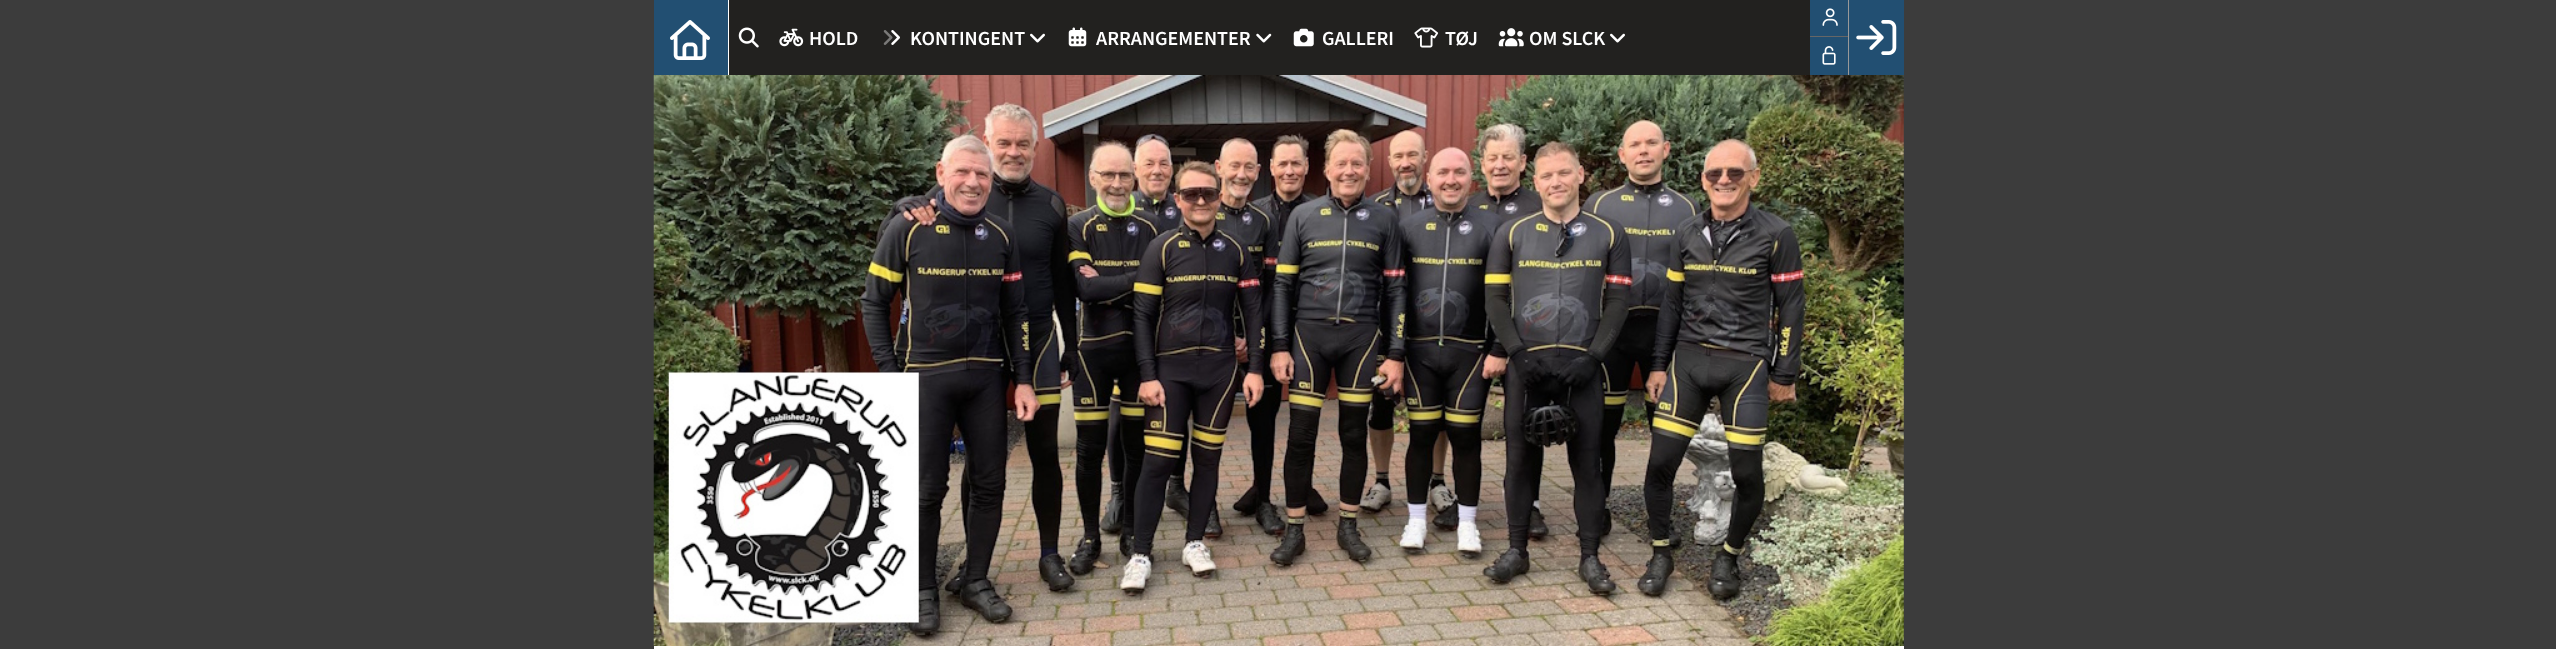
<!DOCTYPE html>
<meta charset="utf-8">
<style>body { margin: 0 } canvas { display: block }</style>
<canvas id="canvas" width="2556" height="649"></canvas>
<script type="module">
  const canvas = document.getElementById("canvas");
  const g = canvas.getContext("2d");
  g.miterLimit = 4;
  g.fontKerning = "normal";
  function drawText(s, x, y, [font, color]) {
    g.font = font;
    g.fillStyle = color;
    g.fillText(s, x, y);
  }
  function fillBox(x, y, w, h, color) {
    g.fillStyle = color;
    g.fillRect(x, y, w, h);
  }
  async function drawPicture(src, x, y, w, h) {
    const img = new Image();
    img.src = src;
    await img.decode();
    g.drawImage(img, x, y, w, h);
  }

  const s1 = ["600 20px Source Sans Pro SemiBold", "#FFFFFF"];

  fillBox(0, 0, 2556, 649, "#3C3C3C");
  fillBox(729, 0, 1081, 75, "#22211F");
  fillBox(654, 0, 74, 75, "#224F72");
  fillBox(728, 0, 1, 75, "#FFFFFF");
  await drawPicture("pic1.png", 670, 20, 40, 40);
  await drawPicture("pic2.png", 738, 27, 21, 21);
  await drawPicture("pic3.png", 779, 28, 25, 19);
  drawText("HOLD", 809, 45, s1);
  await drawPicture("pic5.png", 891, 30, 9, 15);
  await drawPicture("pic4.png", 883, 30, 10, 15);
  drawText("KONTINGENT", 910, 45, s1);
  await drawPicture("pic6.png", 1030, 33, 15, 10);
  await drawPicture("pic7.png", 1068, 27, 19, 20);
  drawText("ARRANGEMENTER", 1096, 45, s1);
  await drawPicture("pic8.png", 1256, 33, 16, 10);
  await drawPicture("pic9.png", 1293, 28, 21, 19);
  drawText("GALLERI", 1322, 45, s1);
  await drawPicture("pic10.png", 1414, 27, 25, 21);
  drawText("TØJ", 1445, 45, s1);
  await drawPicture("pic11.png", 1498, 28, 26, 19);
  drawText("OM SLCK", 1529, 45, s1);
  await drawPicture("pic6.png", 1610, 33, 15, 10);
  fillBox(1810, 0, 38, 75, "#224F72");
  fillBox(1810, 36, 38, 1, "#666666");
  await drawPicture("pic12.png", 1822, 8, 16, 18);
  await drawPicture("pic13.png", 1822, 46, 14, 19);
  fillBox(1849, 0, 55, 75, "#224F72");
  fillBox(1848, 0, 1, 75, "#999999");
  await drawPicture("pic14.png", 1856, 20, 41, 35);
  await drawPicture("pic15.png", 653, 75, 1251, 572);
  fillBox(654, 646, 1250, 3, "#FFFFFF");
</script>
